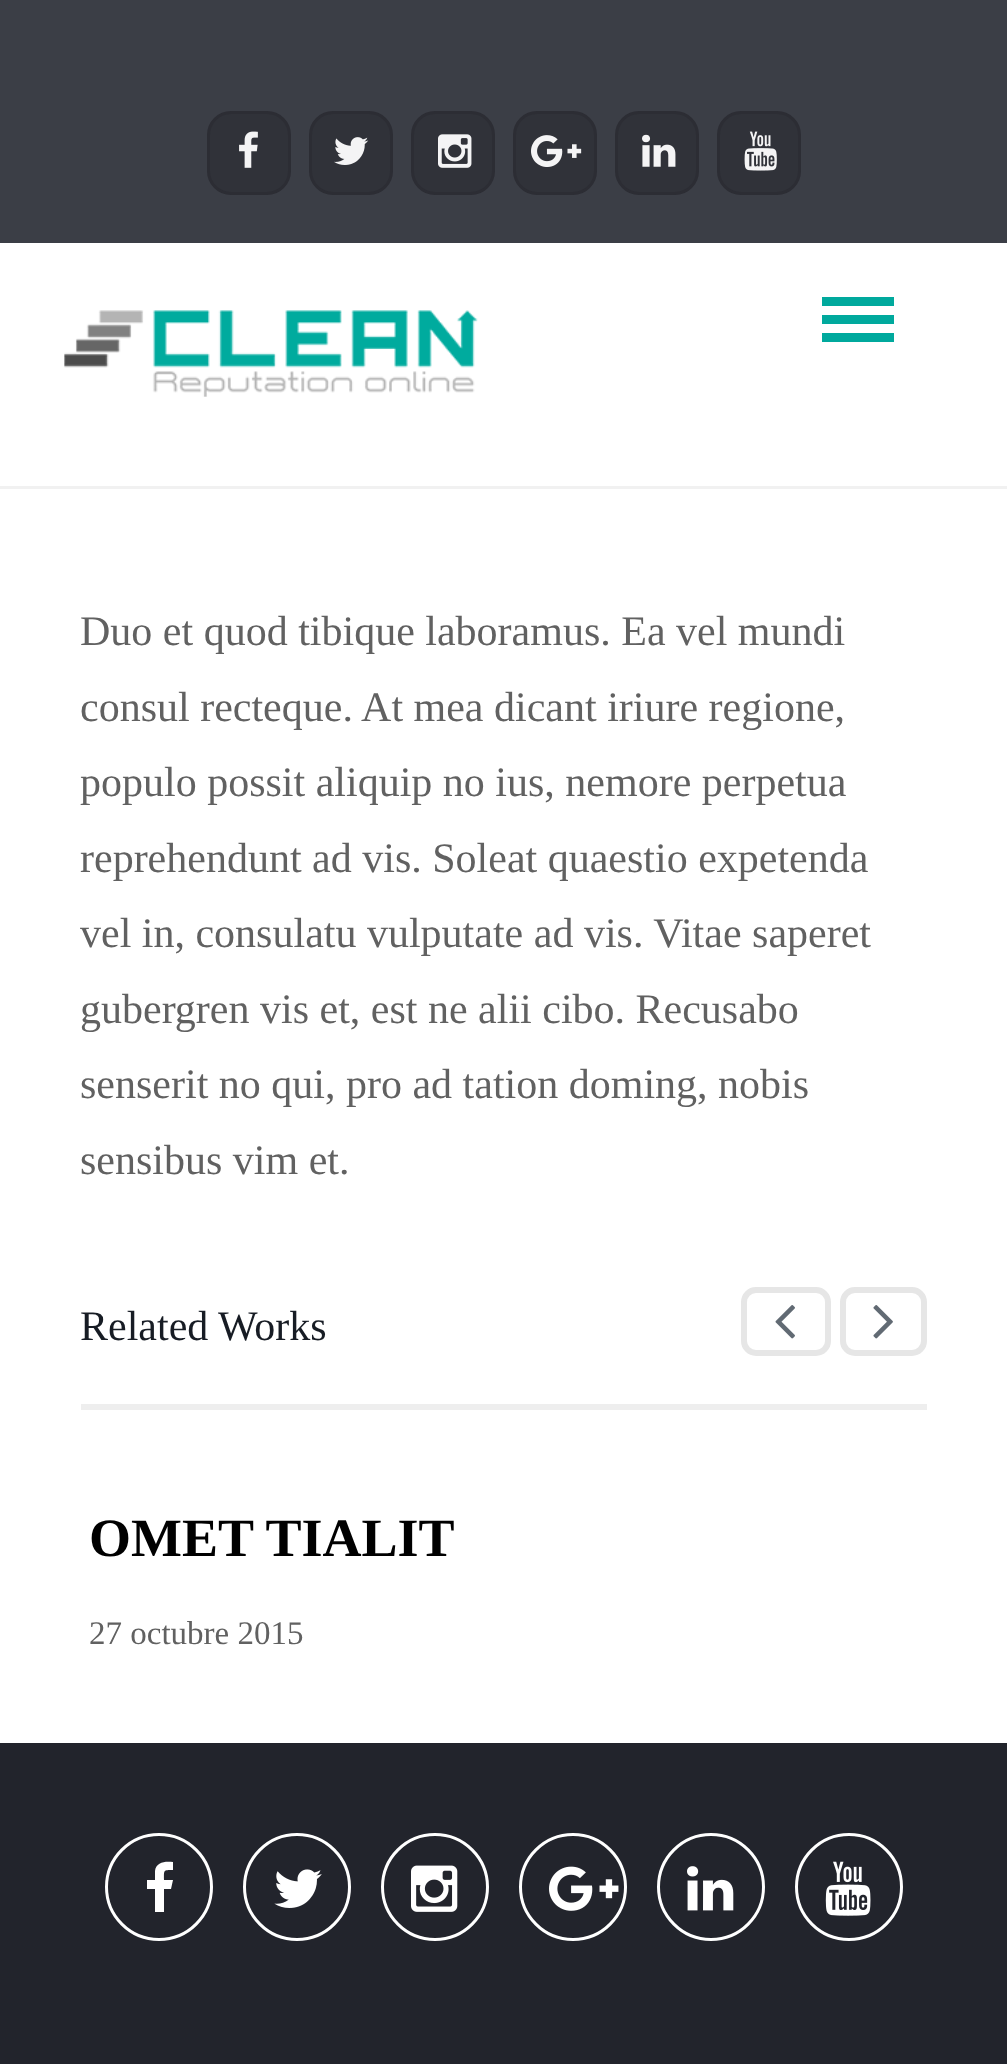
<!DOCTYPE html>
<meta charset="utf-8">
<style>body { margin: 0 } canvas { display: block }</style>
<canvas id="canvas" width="1007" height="2064"></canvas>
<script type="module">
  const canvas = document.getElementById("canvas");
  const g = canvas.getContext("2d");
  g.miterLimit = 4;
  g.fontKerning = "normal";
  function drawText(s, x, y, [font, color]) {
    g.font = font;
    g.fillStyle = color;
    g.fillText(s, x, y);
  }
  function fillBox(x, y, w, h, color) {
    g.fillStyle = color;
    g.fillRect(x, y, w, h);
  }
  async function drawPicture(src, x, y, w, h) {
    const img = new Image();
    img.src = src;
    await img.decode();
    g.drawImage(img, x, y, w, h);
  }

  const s1 = ["42px Liberation Serif", "#616161"];
  const s2 = ["42px Liberation Serif", "#171C24"];
  const s3 = ["bold 54px Liberation Serif", "#000000"];
  const s4 = ["33px Liberation Serif", "#616161"];

  fillBox(0, 0, 1007, 2064, "#FFFFFF");
  fillBox(0, 0, 1007, 243, "#3B3E46");
  g.fillStyle = "#303239";
  g.beginPath();
  g.roundRect(208.5, 112.5, 81, 81, 22.5);
  g.fill();
  g.strokeStyle = "#2C2D34";
  g.lineWidth = 3;
  g.stroke();
  await drawPicture("pic1.png", 239, 131, 19, 37);
  g.beginPath();
  g.roundRect(310.5, 112.5, 81, 81, 22.5);
  g.fill();
  g.stroke();
  await drawPicture("pic2.png", 334, 137, 35, 28);
  g.beginPath();
  g.roundRect(412.5, 112.5, 81, 81, 22.5);
  g.fill();
  g.stroke();
  await drawPicture("pic3.png", 438, 134, 34, 34);
  g.beginPath();
  g.roundRect(514.5, 112.5, 81, 81, 22.5);
  g.fill();
  g.stroke();
  await drawPicture("pic4.png", 531, 135, 51, 32);
  g.beginPath();
  g.roundRect(616.5, 112.5, 81, 81, 22.5);
  g.fill();
  g.stroke();
  await drawPicture("pic5.png", 642, 134, 34, 33);
  g.beginPath();
  g.roundRect(718.5, 112.5, 81, 81, 22.5);
  g.fill();
  g.stroke();
  await drawPicture("pic6.png", 744, 131, 33, 40);
  fillBox(0, 486, 1007, 3, "#F1F1F1");
  await drawPicture("pic7.png", 64, 310, 414, 87);
  fillBox(822, 297, 72, 9, "#00A99D");
  fillBox(822, 315, 72, 9, "#00A99D");
  fillBox(822, 333, 72, 9, "#00A99D");
  drawText("Duo et quod tibique laboramus. Ea vel mundi", 80, 645, s1);
  drawText("consul recteque. At mea dicant iriure regione,", 80, 721, s1);
  drawText("populo possit aliquip no ius, nemore perpetua", 80, 796, s1);
  drawText("reprehendunt ad vis. Soleat quaestio expetenda", 80, 872, s1);
  drawText("vel in, consulatu vulputate ad vis. Vitae saperet", 80, 947, s1);
  drawText("gubergren vis et, est ne alii cibo. Recusabo", 80, 1023, s1);
  drawText("senserit no qui, pro ad tation doming, nobis", 80, 1098, s1);
  drawText("sensibus vim et.", 80, 1174, s1);
  fillBox(81, 1404, 846, 6, "#EEEEEE");
  drawText("Related Works", 80, 1340, s2);
  g.beginPath();
  g.roundRect(744, 1290, 84, 63, 12);
  g.strokeStyle = "#E6E6E6";
  g.lineWidth = 6;
  g.stroke();
  g.beginPath();
  g.roundRect(843, 1290, 81, 63, 12);
  g.stroke();
  await drawPicture("pic8.png", 775, 1305, 20, 34);
  await drawPicture("pic9.png", 873, 1305, 20, 34);
  drawText("OMET TIALIT", 89, 1556, s3);
  drawText("27 octubre 2015", 89, 1644, s4);
  fillBox(0, 1743, 1007, 321, "#22242C");
  g.beginPath();
  g.arc(159, 1887, 52.5, 0, Math.PI * 2);
  g.strokeStyle = "#FFFFFF";
  g.lineWidth = 3;
  g.stroke();
  g.fillStyle = "#FFFFFF";
  g.beginPath();
  g.moveTo(173, 1862);
  g.lineTo(173, 1870);
  g.bezierCurveTo(163, 1870, 164, 1870, 164, 1880);
  g.lineTo(173, 1880);
  g.lineTo(171, 1889);
  g.lineTo(164, 1889);
  g.lineTo(164, 1912);
  g.lineTo(155, 1912);
  g.lineTo(155, 1889);
  g.lineTo(147, 1889);
  g.lineTo(147, 1880);
  g.lineTo(155, 1880);
  g.lineTo(155, 1871);
  g.bezierCurveTo(156, 1862, 165, 1861, 173, 1862);
  g.closePath();
  g.fill();
  g.beginPath();
  g.arc(297, 1887, 52.5, 0, Math.PI * 2);
  g.stroke();
  await drawPicture("pic10.png", 274, 1869, 48, 39);
  g.beginPath();
  g.arc(435, 1887, 52.5, 0, Math.PI * 2);
  g.stroke();
  await drawPicture("pic11.png", 411, 1865, 47, 47);
  g.beginPath();
  g.arc(573, 1887, 52.5, 0, Math.PI * 2);
  g.stroke();
  await drawPicture("pic12.png", 549, 1866, 70, 45);
  g.beginPath();
  g.arc(711, 1887, 52.5, 0, Math.PI * 2);
  g.stroke();
  await drawPicture("pic13.png", 687, 1866, 47, 45);
  g.beginPath();
  g.arc(849, 1887, 52.5, 0, Math.PI * 2);
  g.stroke();
  await drawPicture("pic14.png", 825, 1861, 46, 55);
</script>
